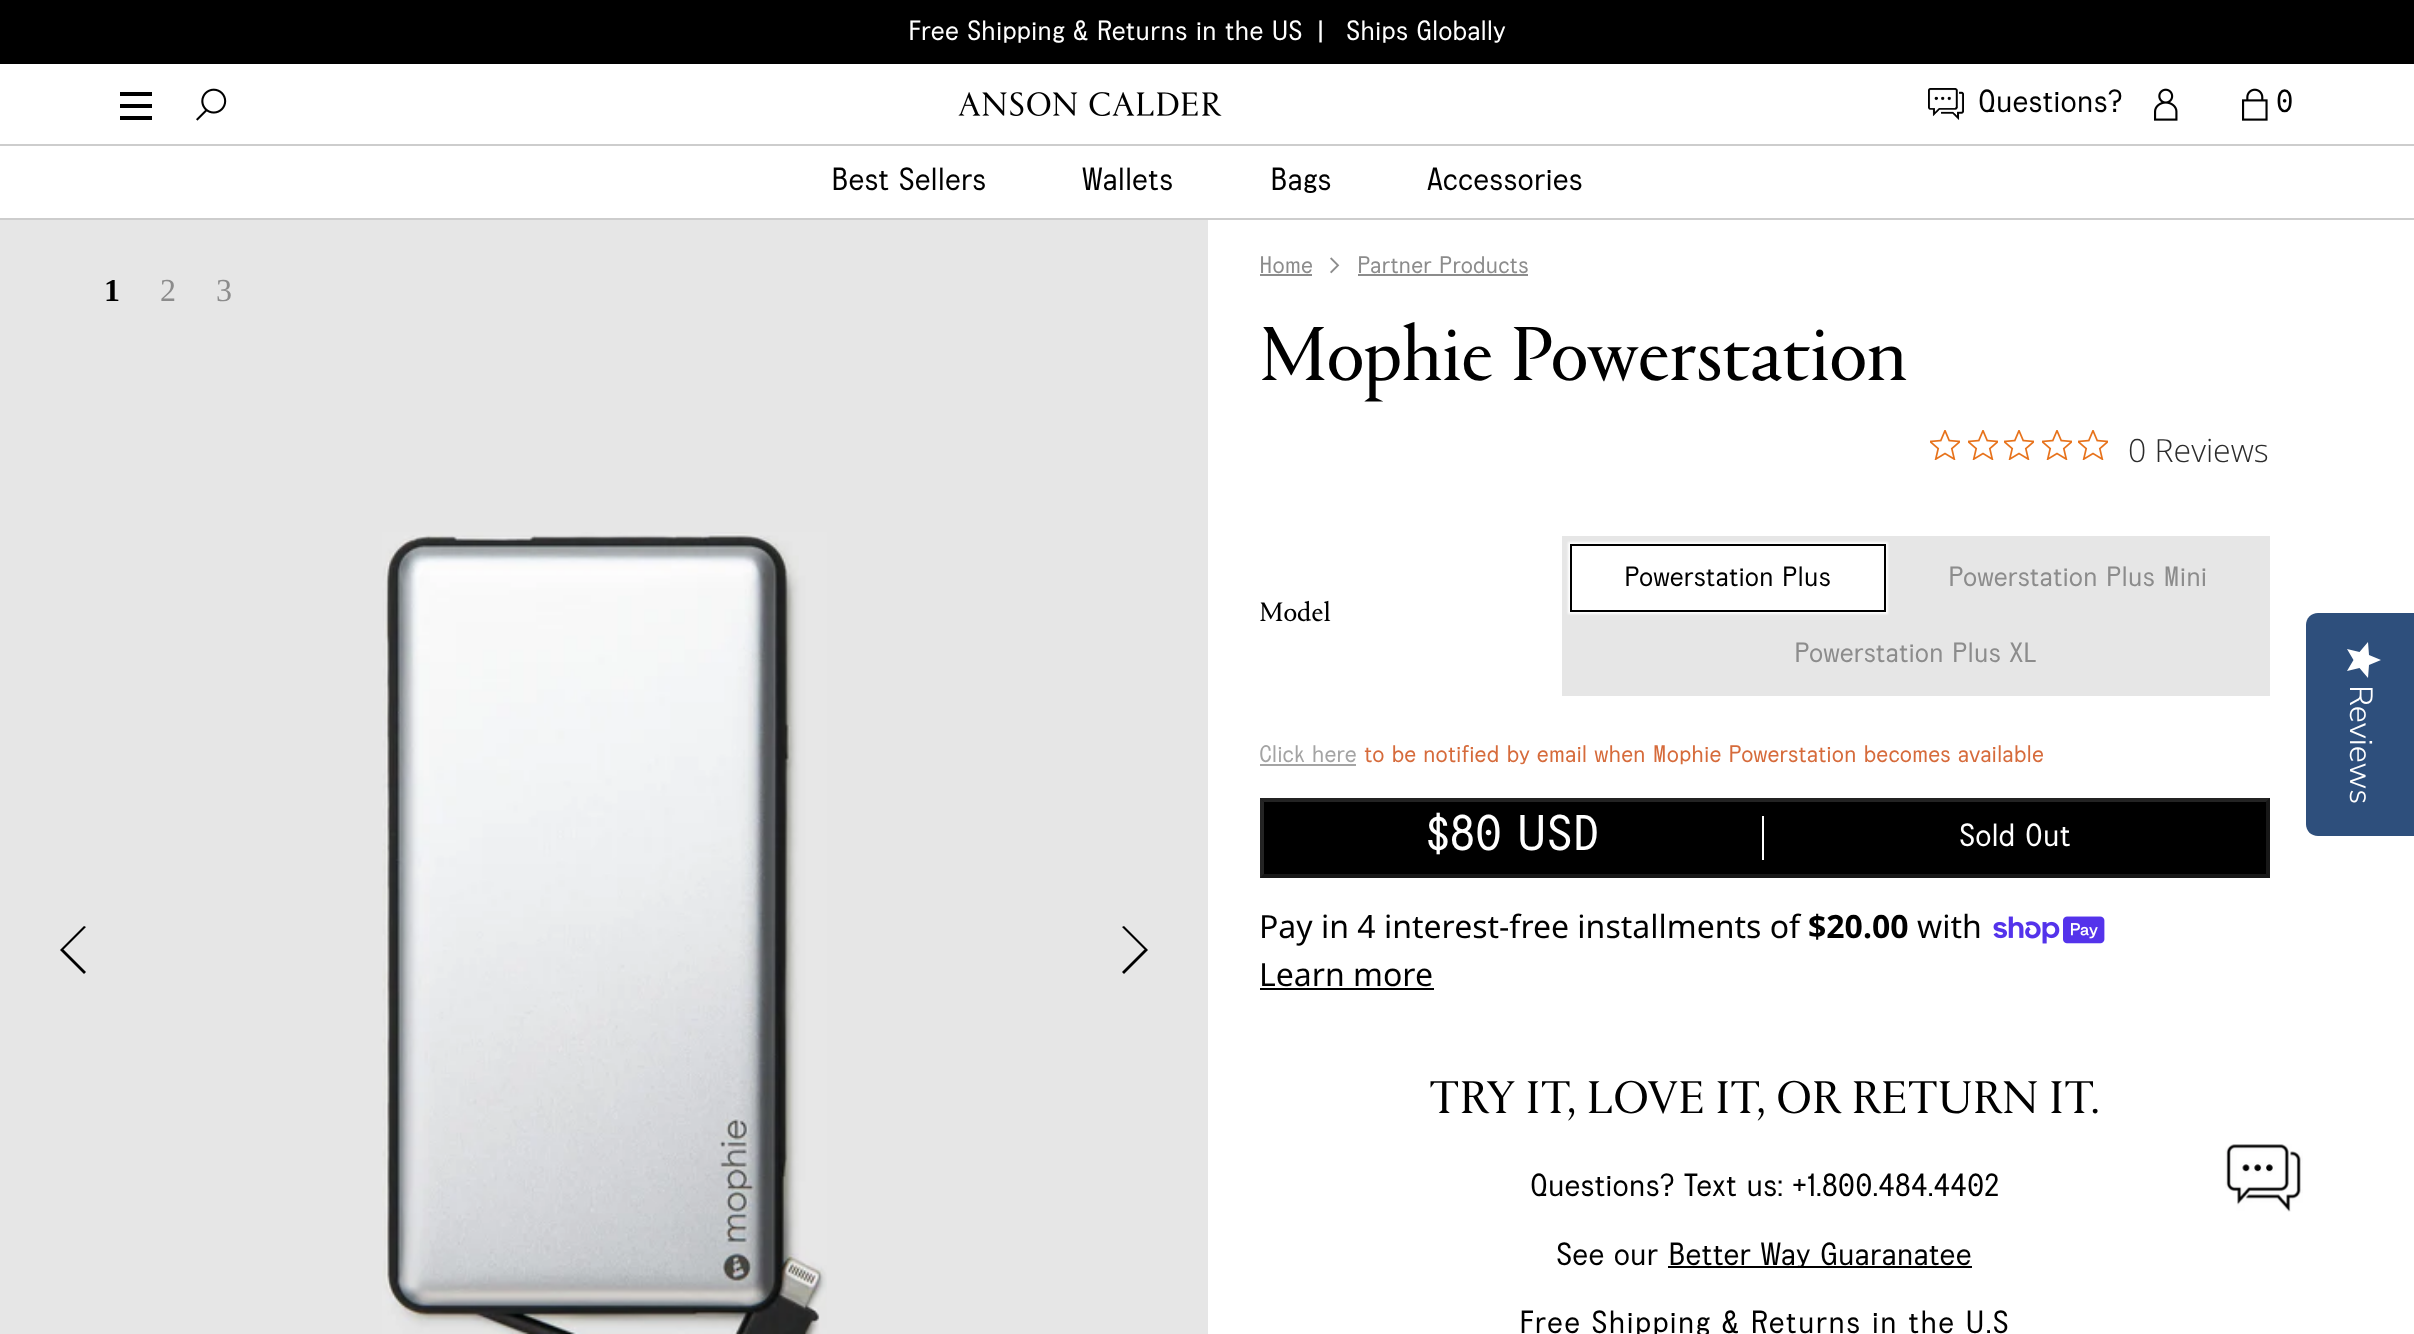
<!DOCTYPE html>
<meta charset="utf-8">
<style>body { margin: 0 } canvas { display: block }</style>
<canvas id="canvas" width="2414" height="1334"></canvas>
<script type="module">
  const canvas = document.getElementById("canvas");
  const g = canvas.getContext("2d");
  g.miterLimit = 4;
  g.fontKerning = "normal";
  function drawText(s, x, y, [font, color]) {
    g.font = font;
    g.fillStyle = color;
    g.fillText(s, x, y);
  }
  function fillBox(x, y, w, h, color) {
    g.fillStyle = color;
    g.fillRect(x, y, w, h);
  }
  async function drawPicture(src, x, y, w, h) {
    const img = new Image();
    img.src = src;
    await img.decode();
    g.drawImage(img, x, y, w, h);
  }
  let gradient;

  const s1 = ["28px 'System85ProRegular'", "#FFFFFF"];
  const s2 = ["32px 'System85ProRegular'", "#000000"];
  const s3 = ["bold 32px Liberation Serif", "#000000"];
  const s4 = ["32px Liberation Serif", "#8C8C8C"];
  const s5 = ["24px 'System85ProRegular'", "#8C8C8C"];
  const s6 = ["80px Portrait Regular", "#000000"];
  const s7 = ["300 32px Open Sans", "#2C2C2C"];
  const s8 = ["28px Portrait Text", "#000000"];
  const s9 = ["28px 'System85ProRegular'", "#000000"];
  const s10 = ["28px 'System85ProRegular'", "#8C8C8C"];
  const s11 = ["24px 'System85ProRegular'", "#A4A4A4"];
  const s12 = ["24px 'System85ProRegular'", "#D66B3B"];
  const s13 = ["50px 'System85ProRegular'", "#FFFFFF"];
  const s14 = ["32px 'System85ProRegular'", "#FFFFFF"];
  const s15 = ["32px Noto Sans", "#000000"];
  const s16 = ["bold 32px Noto Sans", "#000000"];
  const s17 = ["48px Portrait Regular", "#000000"];

  fillBox(0, 0, 2414, 1334, "#FFFFFF");
  fillBox(0, 0, 2414, 64, "#000000");
  drawText("Free Shipping & Returns in the US", 908, 40, s1);
  drawText("|", 1317, 40, s1);
  drawText("Ships Globally", 1346, 40, s1);
  fillBox(120, 104, 32, 4, "#000000");
  fillBox(120, 92, 32, 4, "#000000");
  fillBox(120, 116, 32, 4, "#000000");
  await drawPicture("pic1.png", 196, 88, 31, 33);
  await drawPicture("pic2.png", 958, 92, 264, 24);
  await drawPicture("pic3.png", 1928, 88, 36, 32);
  drawText("Questions?", 1978, 112, s2);
  await drawPicture("pic4.png", 2154, 88, 24, 33);
  await drawPicture("pic5.png", 2242, 88, 26, 33);
  drawText("0", 2276, 112, s2);
  fillBox(0, 144, 2414, 2, "#CDCDCD");
  drawText("Best Sellers", 831, 190, s2);
  drawText("Wallets", 1082, 190, s2);
  drawText("Bags", 1270, 190, s2);
  drawText("Accessories", 1427, 190, s2);
  fillBox(0, 218, 2414, 2, "#CDCDCD");
  fillBox(0, 220, 1208, 1114, "#E6E6E6");
  drawText("1", 104, 301, s3);
  drawText("2", 160, 301, s4);
  drawText("3", 216, 301, s4);
  g.fillStyle = "#000000";
  g.beginPath();
  g.moveTo(60, 950);
  g.lineTo(62, 948);
  g.lineTo(86, 972);
  g.lineTo(84, 974);
  g.closePath();
  g.moveTo(60, 950);
  g.lineTo(84, 926);
  g.lineTo(86, 927);
  g.lineTo(62, 951);
  g.closePath();
  g.fill();
  await drawPicture("pic6.png", 382, 532, 445, 802);
  g.beginPath();
  g.moveTo(1122, 972);
  g.lineTo(1146, 948);
  g.lineTo(1148, 950);
  g.lineTo(1124, 974);
  g.closePath();
  g.moveTo(1122, 927);
  g.lineTo(1124, 926);
  g.lineTo(1148, 950);
  g.lineTo(1146, 951);
  g.closePath();
  g.fill();
  drawText("Home", 1259, 273, s5);
  fillBox(1260, 274, 52, 2, "#8C8C8C");
  await drawPicture("pic7.png", 1330, 257, 10, 17);
  drawText("Partner Products", 1357, 273, s5);
  fillBox(1358, 274, 170, 2, "#8C8C8C");
  drawText("Mophie Powerstation", 1259, 380, s6);
  await drawPicture("pic8.png", 1930, 430, 30, 30);
  await drawPicture("pic8.png", 1968, 430, 30, 30);
  await drawPicture("pic8.png", 2004, 430, 30, 30);
  await drawPicture("pic8.png", 2042, 430, 30, 30);
  await drawPicture("pic8.png", 2078, 430, 30, 30);
  drawText("0 Reviews", 2128, 462, s7);
  drawText("Model", 1259, 621, s8);
  fillBox(1562, 536, 708, 160, "#E6E6E6");
  g.fillStyle = "#FFFFFF";
  g.filter = "blur(1px)";
  g.beginPath();
  g.rect(1568, 542, 320, 72);
  g.fill();
  g.filter = "none";
  g.strokeStyle = "#000000";
  g.lineWidth = 2;
  g.strokeRect(1571, 545, 314, 66);
  drawText("Powerstation Plus", 1624, 586, s9);
  drawText("Powerstation Plus Mini", 1948, 586, s10);
  drawText("Powerstation Plus XL", 1794, 662, s10);
  drawText("Click here", 1259, 762, s11);
  fillBox(1260, 764, 96, 2, "#A4A4A4");
  drawText("to be notified by email when Mophie Powerstation becomes available", 1364, 762, s12);
  fillBox(1260, 798, 1010, 80, "#000000");
  g.fillStyle = "#232323";
  g.beginPath();
  g.moveTo(1260, 798);
  g.lineTo(2270, 798);
  g.lineTo(2266, 802);
  g.lineTo(1264, 802);
  g.closePath();
  g.fill();
  g.fillStyle = "rgba(79, 79, 79, 0.3)";
  g.beginPath();
  g.moveTo(2270, 798);
  g.lineTo(2270, 878);
  g.lineTo(2266, 874);
  g.lineTo(2266, 802);
  g.closePath();
  g.fill();
  g.beginPath();
  g.moveTo(2270, 878);
  g.lineTo(1260, 878);
  g.lineTo(1264, 874);
  g.lineTo(2266, 874);
  g.closePath();
  g.fill();
  g.fillStyle = "rgba(118, 118, 118, 0.3)";
  g.beginPath();
  g.moveTo(1260, 878);
  g.lineTo(1260, 798);
  g.lineTo(1264, 802);
  g.lineTo(1264, 874);
  g.closePath();
  g.fill();
  fillBox(1762, 816, 2, 44, "#FFFFFF");
  drawText("$80 USD", 1426, 850, s13);
  drawText("Sold Out", 1959, 846, s14);
  drawText("Pay in 4 interest-free installments of", 1259, 938, s15);
  drawText("$20.00", 1808, 938, s16);
  drawText("with", 1917, 938, s15);
  await drawPicture("pic9.png", 1993, 916, 112, 28);
  drawText("Learn more", 1259, 986, s15);
  fillBox(1260, 988, 174, 2, "#000000");
  drawText("TRY IT, LOVE IT, OR RETURN IT.", 1429, 1113, s17);
  drawText("Questions? Text us: +1.800.484.4402", 1530, 1196, s2);
  drawText("See our", 1556, 1265, s2);
  fillBox(1668, 1266, 304, 2, "#000000");
  drawText("Better Way Guaranatee", 1668, 1265, s2);
  g.letterSpacing = "1px";
  drawText("Free Shipping & Returns in the U.S", 1519, 1333, s2);
  g.fillStyle = "#2E4F7C";
  g.beginPath();
  g.moveTo(2414, 613);
  g.lineTo(2414, 836);
  g.lineTo(2318, 836);
  g.bezierCurveTo(2311, 836, 2306, 831, 2306, 824);
  g.lineTo(2306, 625);
  g.bezierCurveTo(2306, 618, 2311, 613, 2318, 613);
  g.closePath();
  g.fill();
  gradient = g.createLinearGradient(2381, 642, 2381, 678);
  gradient.addColorStop(1, "#FFFFFF");
  gradient.addColorStop(1, "#EAEAEA");
  g.fillStyle = gradient;
  g.beginPath();
  g.moveTo(2353.5, 660);
  g.lineTo(2347, 671);
  g.lineTo(2359.5, 668);
  g.lineTo(2368, 678);
  g.lineTo(2369, 665);
  g.lineTo(2381, 660);
  g.lineTo(2369, 655);
  g.lineTo(2368, 642);
  g.lineTo(2359.5, 652);
  g.lineTo(2347, 649);
  g.closePath();
  g.fill();
  g.letterSpacing = "0px";
  g.font = "300 32px Nunito Sans";
  g.fillStyle = "#FFFFFF";
  g.save();
  g.translate(2350, 685);
  g.rotate(90 * Math.PI / 180);
  g.fillText("Reviews", 0, 0);
  g.restore();
  await drawPicture("pic10.png", 2225, 1144, 78, 68);
</script>
